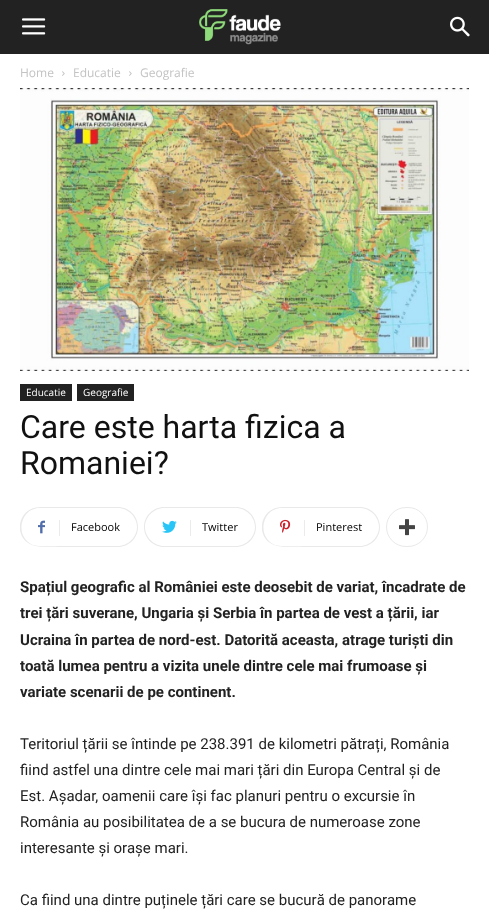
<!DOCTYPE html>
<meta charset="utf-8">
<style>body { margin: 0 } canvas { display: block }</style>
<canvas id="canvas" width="489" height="918"></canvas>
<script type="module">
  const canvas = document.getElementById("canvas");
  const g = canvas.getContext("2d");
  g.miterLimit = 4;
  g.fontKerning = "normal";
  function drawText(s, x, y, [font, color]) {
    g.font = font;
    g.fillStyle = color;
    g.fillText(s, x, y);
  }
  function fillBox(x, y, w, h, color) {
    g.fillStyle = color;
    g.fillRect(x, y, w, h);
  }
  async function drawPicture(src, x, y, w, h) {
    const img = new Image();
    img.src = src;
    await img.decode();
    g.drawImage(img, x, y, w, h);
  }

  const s1 = ["12px Open Sans", "#C3C3C3"];
  const s2 = ["10px Open Sans", "#FFFFFF"];
  const s3 = ["32px Roboto", "#111111"];
  const s4 = ["11px Open Sans", "#000000"];
  const s5 = ["bold 15px Roboto", "#222222"];
  const s6 = ["15px Roboto", "#222222"];

  fillBox(0, 0, 489, 918, "#FFFFFF");
  fillBox(0, 0, 489, 54, "#222222");
  await drawPicture("pic1.png", 22, 18, 24, 17);
  await drawPicture("pic2.png", 199, 9, 82, 36);
  await drawPicture("pic3.png", 450, 16, 20, 21);
  drawText("Home", 20, 77, s1);
  await drawPicture("pic4.png", 62, 71, 3, 5);
  drawText("Educatie", 73, 77, s1);
  await drawPicture("pic4.png", 129, 71, 3, 5);
  drawText("Geografie", 140, 77, s1);
  await drawPicture("pic5.png", 20, 88, 449, 283);
  fillBox(20, 384, 52, 17, "#222222");
  drawText("Educatie", 26, 396, s2);
  fillBox(77, 384, 57, 17, "#222222");
  drawText("Geografie", 83, 396, s2);
  drawText("Care este harta fizica a", 20, 438, s3);
  drawText("Romaniei?", 20, 474, s3);
  g.fillStyle = "#E9E9E9";
  g.beginPath();
  g.moveTo(59, 507);
  g.lineTo(118, 507);
  g.bezierCurveTo(129, 507, 138, 516, 138, 527);
  g.bezierCurveTo(138, 538, 129, 547, 118, 547);
  g.lineTo(59, 547);
  g.closePath();
  g.moveTo(59, 508);
  g.lineTo(118, 508);
  g.bezierCurveTo(128, 508, 137, 517, 137, 527);
  g.bezierCurveTo(137, 537, 128, 546, 118, 546);
  g.lineTo(59, 546);
  g.closePath();
  g.fill("evenodd");
  g.save();
  g.beginPath();
  g.rect(20, 507, 118, 40);
  g.clip();
  g.beginPath();
  g.moveTo(40, 507);
  g.lineTo(62, 507);
  g.lineTo(62, 547);
  g.bezierCurveTo(54, 547, 39, 548, 32, 545);
  g.bezierCurveTo(12, 537, 18, 507, 40, 507);
  g.closePath();
  g.moveTo(40, 508);
  g.lineTo(62, 508);
  g.lineTo(62, 546);
  g.bezierCurveTo(54, 546, 39, 547, 33, 545);
  g.bezierCurveTo(14, 537, 20, 508, 40, 508);
  g.closePath();
  g.fill("evenodd");
  g.restore();
  await drawPicture("pic6.png", 38, 520, 7, 14);
  fillBox(59, 520, 1, 16, "#EBEBEB");
  drawText("Facebook", 71, 531, s4);
  g.fillStyle = "#E9E9E9";
  g.beginPath();
  g.moveTo(190, 507);
  g.lineTo(236, 507);
  g.bezierCurveTo(247, 507, 256, 516, 256, 527);
  g.bezierCurveTo(256, 538, 247, 547, 236, 547);
  g.lineTo(190, 547);
  g.closePath();
  g.moveTo(190, 508);
  g.lineTo(236, 508);
  g.bezierCurveTo(246, 508, 255, 517, 255, 527);
  g.bezierCurveTo(255, 537, 246, 546, 236, 546);
  g.lineTo(190, 546);
  g.closePath();
  g.fill("evenodd");
  g.beginPath();
  g.moveTo(164, 507);
  g.lineTo(194, 507);
  g.lineTo(194, 547);
  g.lineTo(164, 547);
  g.bezierCurveTo(153, 547, 144, 538, 144, 527);
  g.bezierCurveTo(144, 516, 153, 507, 164, 507);
  g.closePath();
  g.moveTo(164, 508);
  g.lineTo(194, 508);
  g.lineTo(194, 546);
  g.lineTo(164, 546);
  g.bezierCurveTo(154, 546, 145, 537, 145, 527);
  g.bezierCurveTo(145, 517, 154, 508, 164, 508);
  g.closePath();
  g.fill("evenodd");
  await drawPicture("pic7.png", 162, 520, 15, 13);
  fillBox(190, 520, 1, 16, "#EBEBEB");
  drawText("Twitter", 202, 531, s4);
  g.fillStyle = "#E9E9E9";
  g.beginPath();
  g.moveTo(304, 507);
  g.lineTo(360, 507);
  g.bezierCurveTo(371, 507, 380, 516, 380, 527);
  g.bezierCurveTo(380, 538, 371, 547, 360, 547);
  g.lineTo(304, 547);
  g.closePath();
  g.moveTo(304, 508);
  g.lineTo(360, 508);
  g.bezierCurveTo(370, 508, 379, 517, 379, 527);
  g.bezierCurveTo(379, 537, 370, 546, 360, 546);
  g.lineTo(304, 546);
  g.closePath();
  g.fill("evenodd");
  g.save();
  g.beginPath();
  g.rect(262, 507, 118, 40);
  g.clip();
  g.beginPath();
  g.moveTo(282, 507);
  g.lineTo(307, 507);
  g.lineTo(307, 547);
  g.bezierCurveTo(299, 547, 281, 548, 274, 545);
  g.bezierCurveTo(254, 537, 260, 507, 282, 507);
  g.closePath();
  g.moveTo(282, 508);
  g.lineTo(307, 508);
  g.lineTo(307, 546);
  g.bezierCurveTo(299, 546, 281, 547, 275, 545);
  g.bezierCurveTo(256, 537, 262, 508, 282, 508);
  g.closePath();
  g.fill("evenodd");
  g.restore();
  await drawPicture("pic8.png", 280, 519, 11, 14);
  fillBox(304, 520, 1, 16, "#EBEBEB");
  drawText("Pinterest", 316, 531, s4);
  g.beginPath();
  g.roundRect(386.5, 507.5, 41, 39, 19.5);
  g.strokeStyle = "#E9E9E9";
  g.stroke();
  await drawPicture("pic9.png", 399, 519, 16, 17);
  drawText("Spațiul geografic al României este deosebit de variat, încadrate de", 20, 592, s5);
  drawText("trei țări suverane, Ungaria și Serbia în partea de vest a țării, iar", 20, 618, s5);
  drawText("Ucraina în partea de nord-est. Datorită aceasta, atrage turiști din", 20, 645, s5);
  drawText("toată lumea pentru a vizita unele dintre cele mai frumoase și", 20, 671, s5);
  drawText("variate scenarii de pe continent.", 20, 697, s5);
  drawText("Teritoriul țării se întinde pe 238.391 de kilometri pătrați, România", 20, 749, s6);
  drawText("fiind astfel una dintre cele mai mari țări din Europa Central și de", 20, 775, s6);
  drawText("Est. Așadar, oamenii care își fac planuri pentru o excursie în", 20, 801, s6);
  drawText("România au posibilitatea de a se bucura de numeroase zone", 20, 827, s6);
  drawText("interesante și orașe mari.", 20, 853, s6);
  drawText("Ca fiind una dintre puținele țări care se bucură de panorame", 20, 905, s6);
</script>
